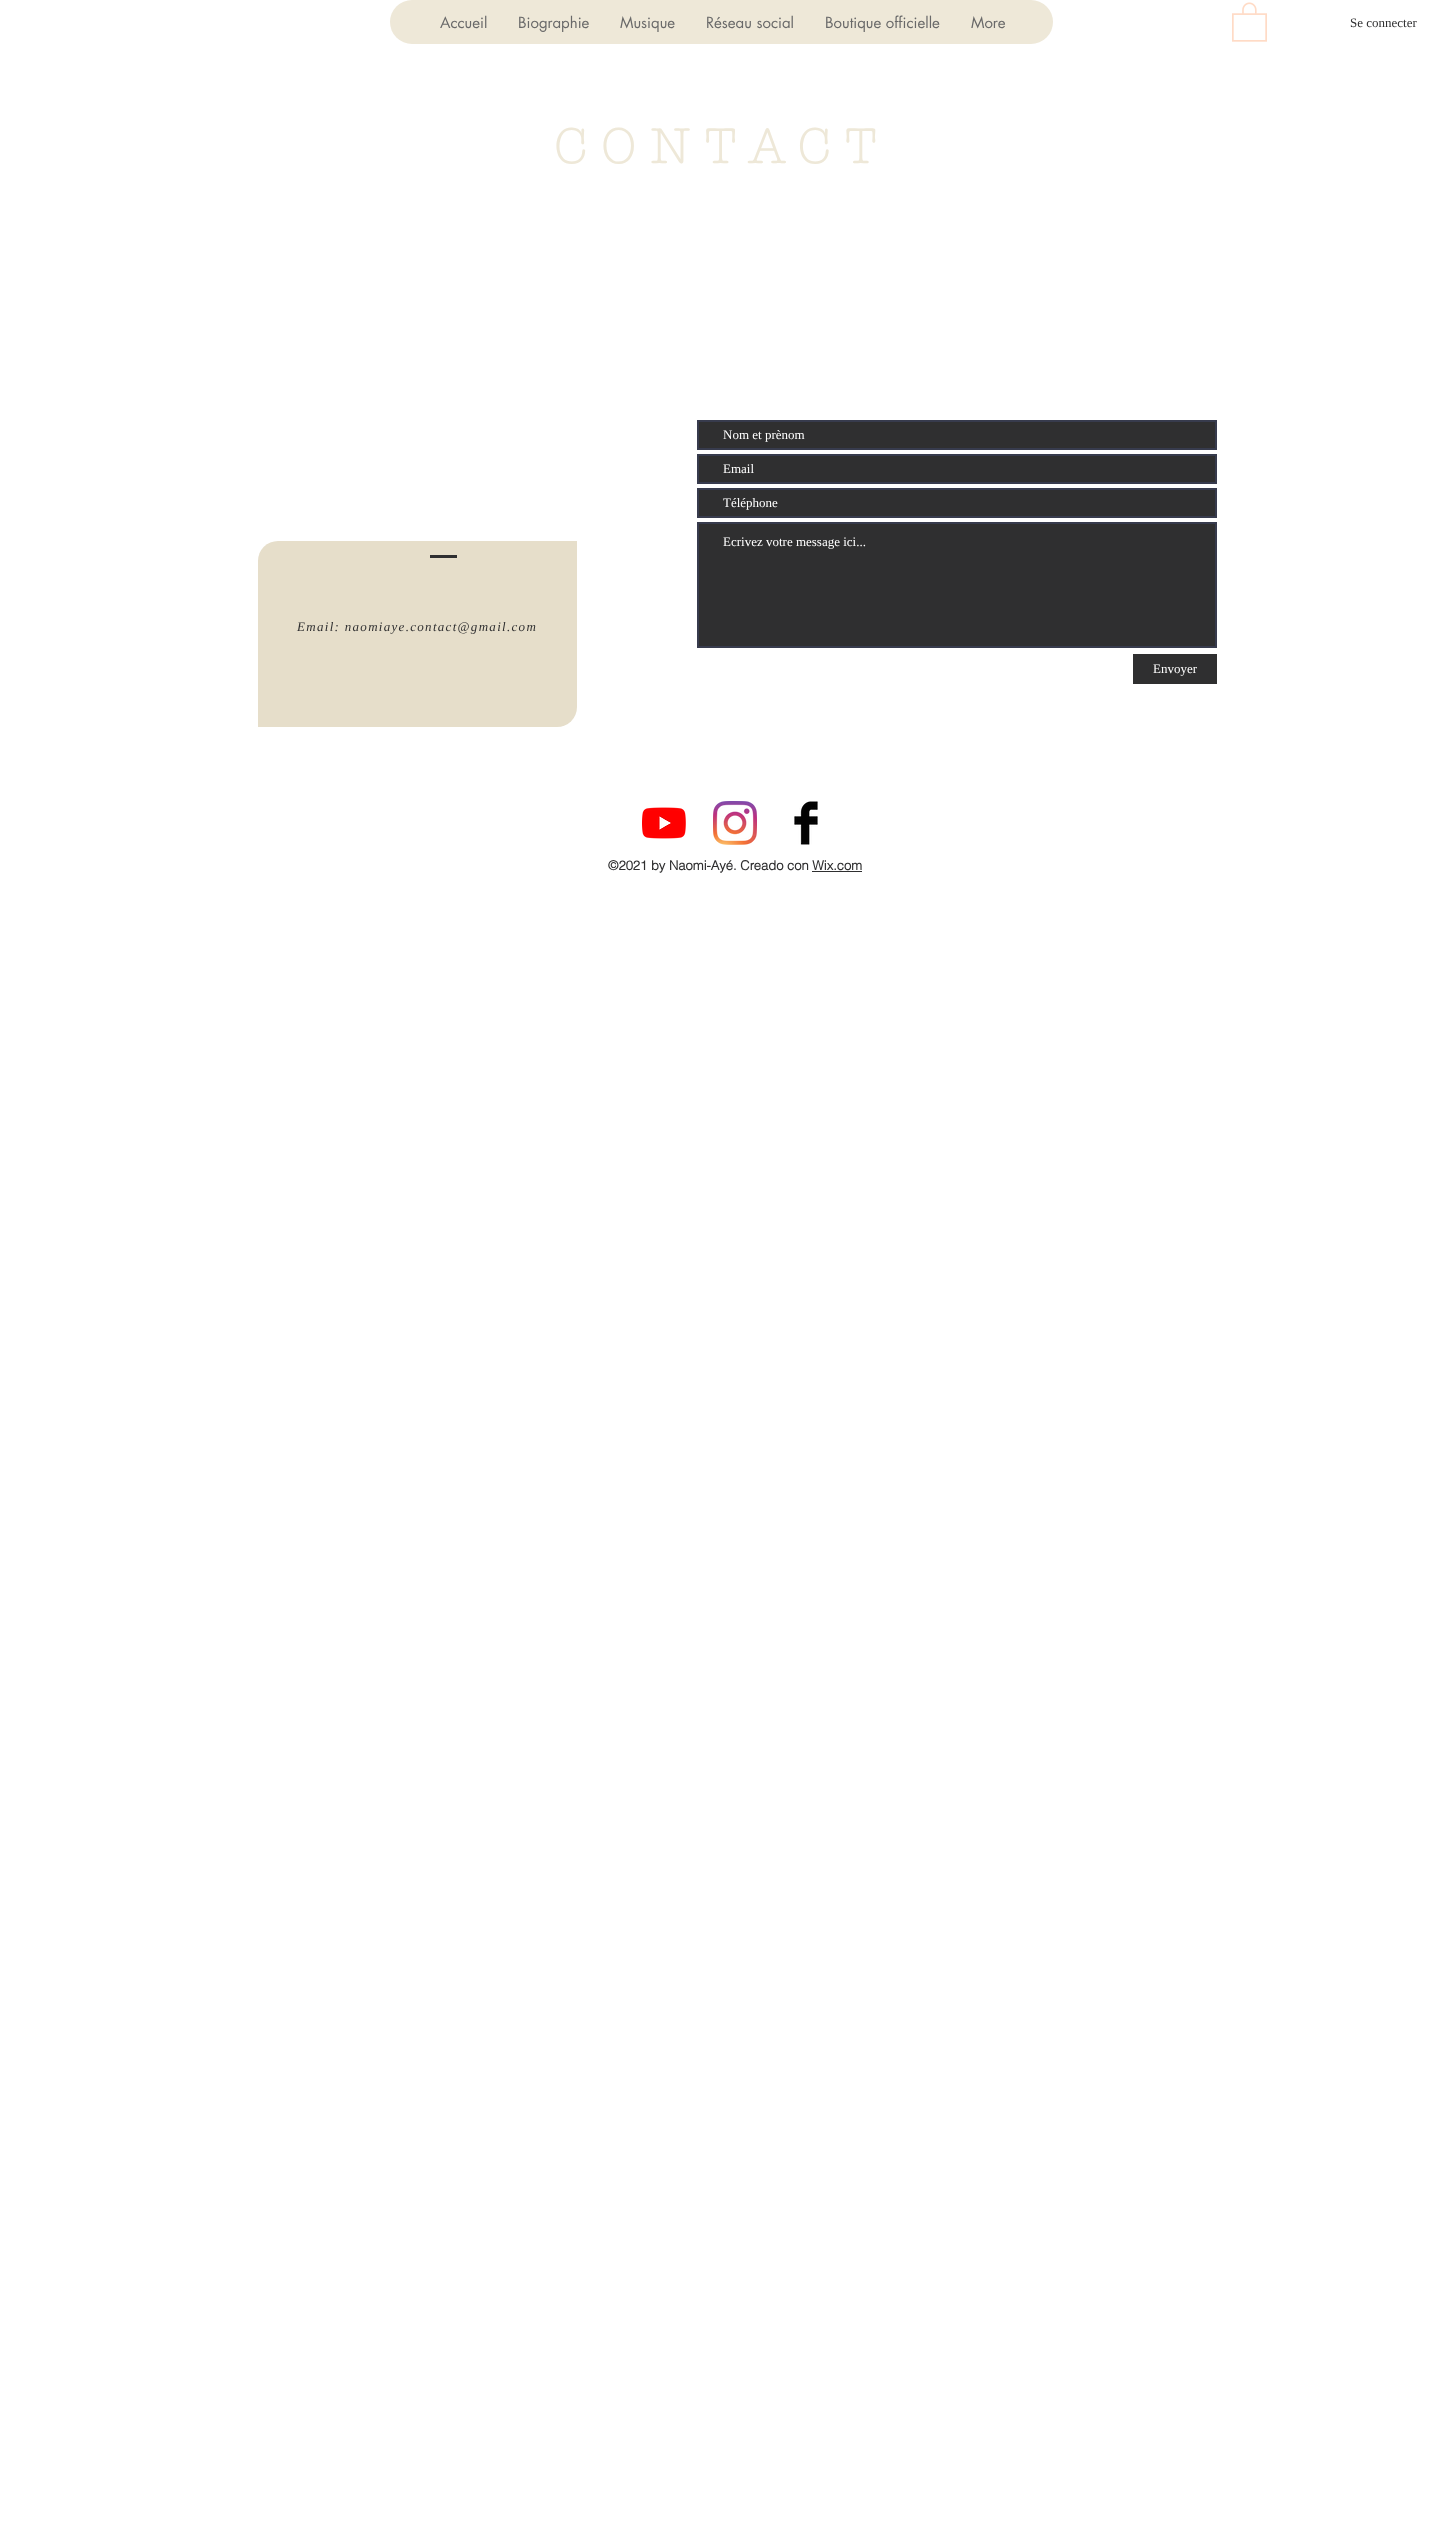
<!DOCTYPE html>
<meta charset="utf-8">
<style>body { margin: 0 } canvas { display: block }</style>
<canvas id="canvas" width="1452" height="2531"></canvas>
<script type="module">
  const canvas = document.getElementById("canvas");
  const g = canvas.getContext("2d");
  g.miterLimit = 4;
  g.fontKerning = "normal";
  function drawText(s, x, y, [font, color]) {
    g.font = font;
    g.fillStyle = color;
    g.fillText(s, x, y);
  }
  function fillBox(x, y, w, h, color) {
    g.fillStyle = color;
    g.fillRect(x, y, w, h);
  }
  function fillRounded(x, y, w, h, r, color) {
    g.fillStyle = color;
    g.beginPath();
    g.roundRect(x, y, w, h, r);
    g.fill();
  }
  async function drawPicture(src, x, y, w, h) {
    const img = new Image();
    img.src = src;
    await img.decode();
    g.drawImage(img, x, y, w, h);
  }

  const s1 = ["15px futura", "#696969"];
  const s2 = ["13px Liberation Serif", "#2F2F30"];
  const s3 = ["bold 49px 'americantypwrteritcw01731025'", "#EEE8D8"];
  const s4 = ["italic 13px Liberation Serif", "#2F2F30"];
  const s5 = ["13px Liberation Serif", "#FFFFFF"];
  const s6 = ["bold 13px helvetica", "#2F2F30"];

  fillBox(0, 0, 1452, 2531, "#FFFFFF");
  fillRounded(390, 0, 663, 44, 22, "#EEE8D8");
  drawText("Accueil", 440, 28, s1);
  drawText("Biographie", 518, 28, s1);
  drawText("Musique", 620, 28, s1);
  drawText("Réseau social", 706, 28, s1);
  drawText("Boutique officielle", 825, 28, s1);
  drawText("More", 971, 28, s1);
  await drawPicture("pic1.png", 1232, 2, 35, 40);
  drawText("Se connecter", 1350, 27, s2);
  g.letterSpacing = "14.75px";
  drawText("CONTACT", 554, 163, s3);
  g.fillStyle = "#E6DECA";
  g.beginPath();
  g.roundRect(258, 541, 319, 186, [20, 0, 20, 0]);
  g.fill();
  fillBox(430, 555, 27, 3, "#2F2F30");
  g.letterSpacing = "1.3px";
  drawText("Email: naomiaye.contact@gmail.com", 297, 631, s4);
  g.beginPath();
  g.rect(698, 421, 518, 28);
  g.fill();
  g.strokeStyle = "#373B4D";
  g.lineWidth = 2;
  g.stroke();
  g.letterSpacing = "0px";
  drawText("Nom et prènom", 723, 439, s5);
  g.fillStyle = "#2F2F30";
  g.beginPath();
  g.rect(698, 455, 518, 28);
  g.fill();
  g.stroke();
  drawText("Email", 723, 473, s5);
  g.fillStyle = "#2F2F30";
  g.beginPath();
  g.rect(698, 489, 518, 28);
  g.fill();
  g.stroke();
  drawText("Téléphone", 723, 507, s5);
  g.fillStyle = "#2F2F30";
  g.beginPath();
  g.rect(698, 523, 518, 124);
  g.fill();
  g.stroke();
  drawText("Ecrivez votre message ici...", 723, 546, s5);
  fillBox(1133, 654, 84, 30, "#2F2F30");
  drawText("Envoyer", 1153, 673, s5);
  await drawPicture("pic2.png", 642, 807, 44, 32);
  await drawPicture("pic3.png", 713, 801, 44, 44);
  await drawPicture("pic4.png", 794, 801, 24, 44);
  drawText("©2021 by Naomi-Ayé. Creado con Wix.com", 608, 870, s6);
  fillBox(812, 871, 50, 1, "#2F2F30");
</script>
